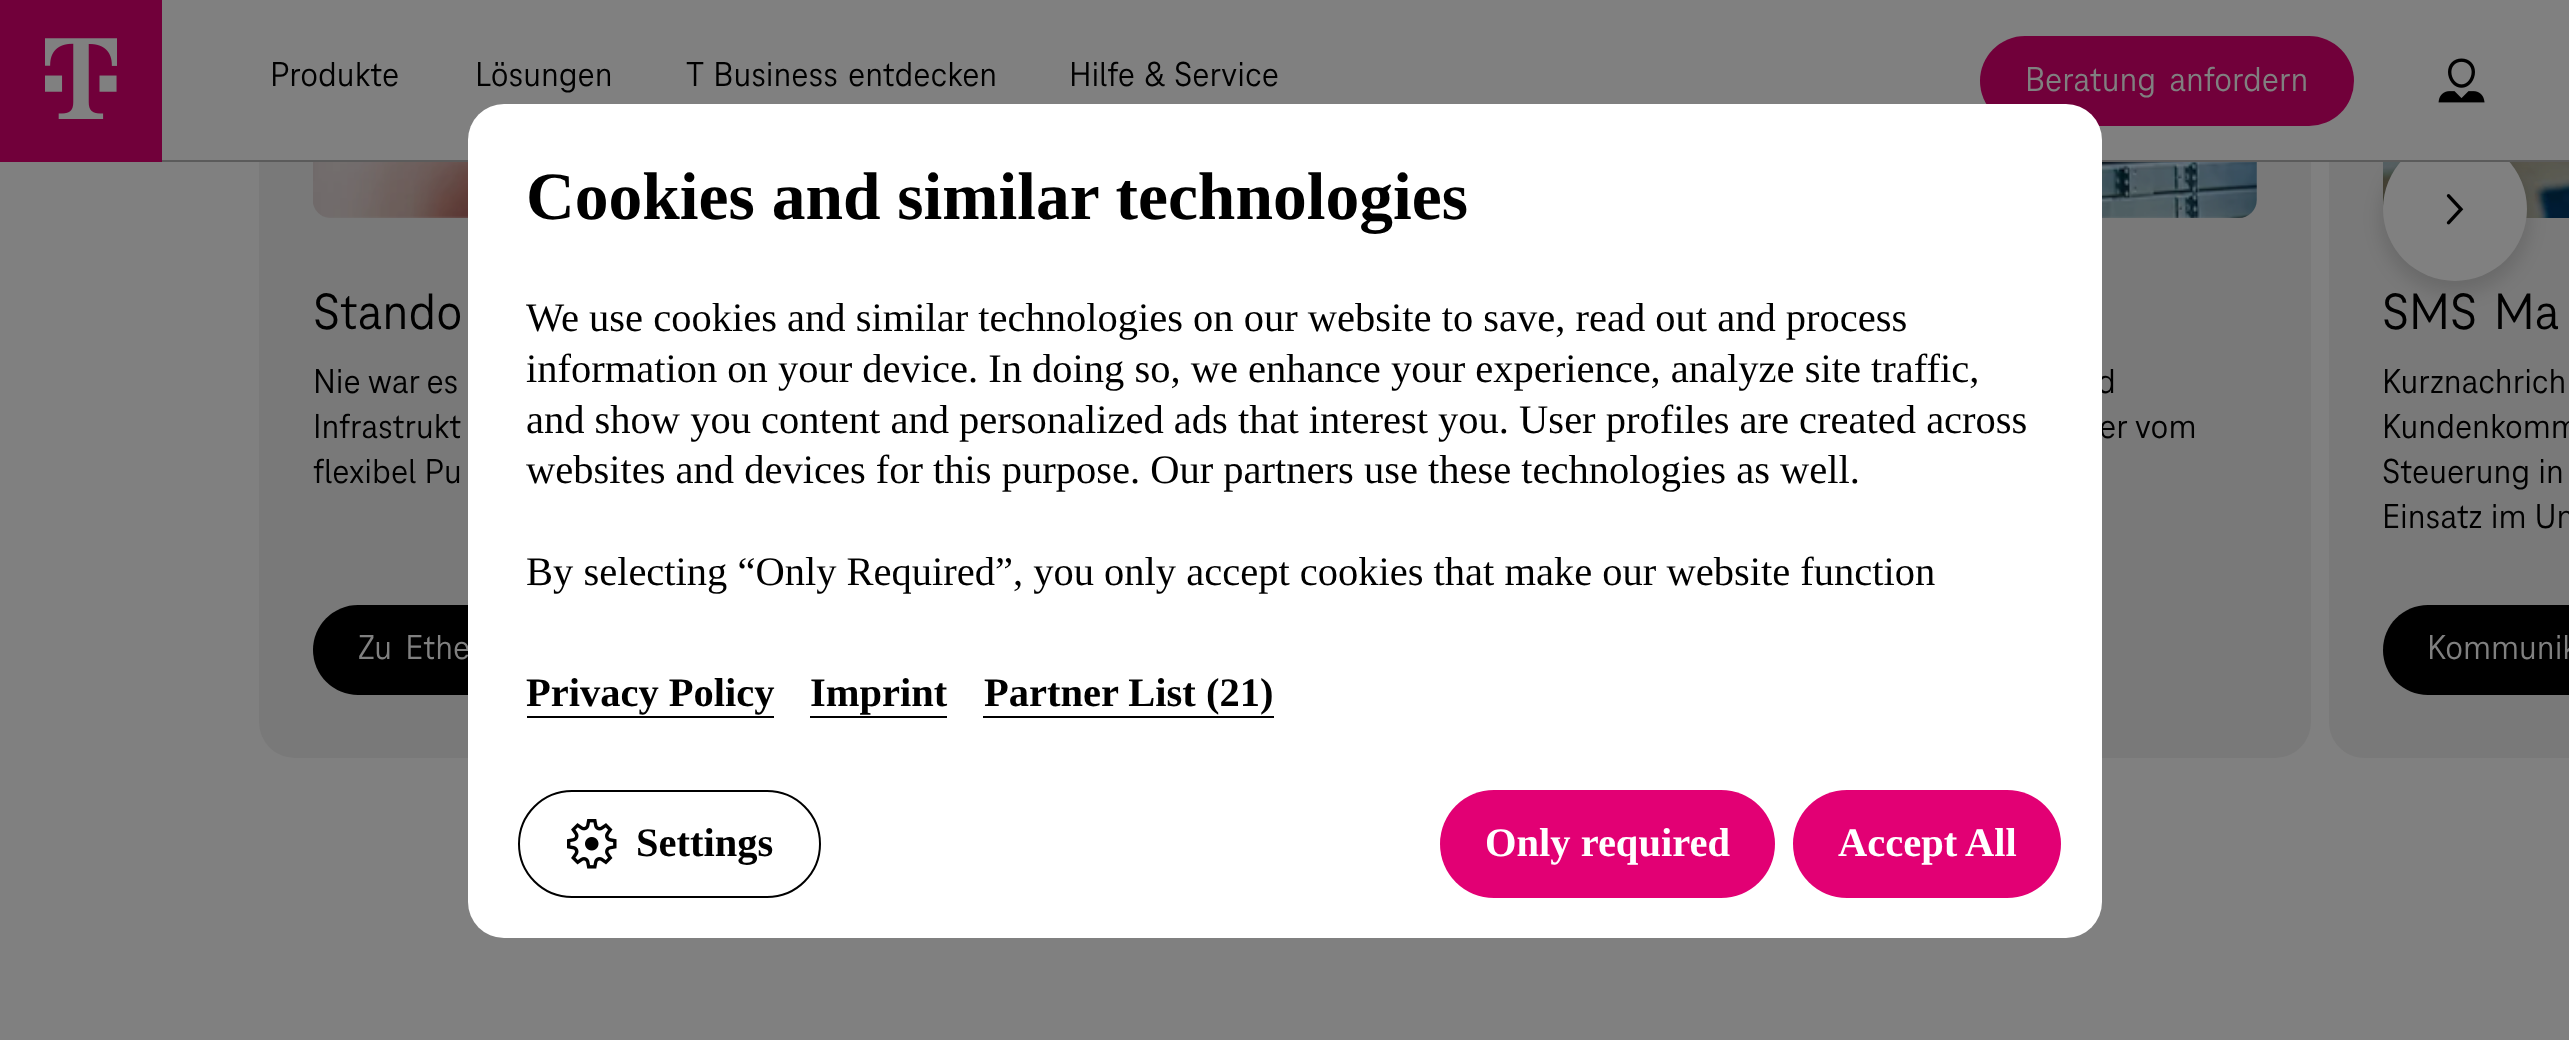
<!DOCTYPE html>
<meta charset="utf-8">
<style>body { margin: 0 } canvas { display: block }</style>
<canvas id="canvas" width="2569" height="1040"></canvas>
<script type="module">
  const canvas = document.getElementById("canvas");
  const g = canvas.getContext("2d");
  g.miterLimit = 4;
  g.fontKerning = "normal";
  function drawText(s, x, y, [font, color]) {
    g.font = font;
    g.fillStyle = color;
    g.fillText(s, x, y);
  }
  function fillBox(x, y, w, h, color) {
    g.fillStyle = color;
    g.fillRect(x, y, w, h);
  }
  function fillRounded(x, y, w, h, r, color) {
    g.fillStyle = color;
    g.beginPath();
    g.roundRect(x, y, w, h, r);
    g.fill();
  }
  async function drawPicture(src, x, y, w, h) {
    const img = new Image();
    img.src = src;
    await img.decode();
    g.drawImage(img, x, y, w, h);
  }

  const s1 = ["36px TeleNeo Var", "#000000"];
  const s2 = ["36px TeleNeo Var", "#808080"];
  const s3 = ["bold 67.5px Liberation Serif", "#000000"];
  const s4 = ["40.5px Liberation Serif", "#000000"];
  const s5 = ["bold 40.5px Liberation Serif", "#000000"];
  const s6 = ["bold 40.5px Liberation Serif", "#FFFFFF"];
  const s7 = ["53px TeleNeo Var", "#000000"];

  fillBox(0, 0, 2569, 1040, "#808080");
  g.fillStyle = "#797979";
  g.beginPath();
  g.moveTo(2365, -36);
  g.lineTo(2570, -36);
  g.lineTo(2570, 758);
  g.lineTo(2365, 758);
  g.bezierCurveTo(2345, 758, 2329, 742, 2329, 722);
  g.lineTo(2329, 0);
  g.bezierCurveTo(2329, -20, 2345, -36, 2365, -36);
  g.closePath();
  g.fill();
  await drawPicture("pic7.png", 2383, 162, 186, 56);
  g.fillStyle = "rgba(0, 0, 0, 0.13)";
  g.filter = "blur(9px)";
  g.beginPath();
  g.roundRect(2381, 144, 148, 149, 74);
  g.fill();
  g.filter = "none";
  g.fillStyle = "#808080";
  g.beginPath();
  g.arc(2455, 209, 72, 0, Math.PI * 2);
  g.fill();
  fillRounded(259, -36, 1017, 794, 36, "#797979");
  fillRounded(1294, -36, 1017, 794, 36, "#797979");
  fillBox(259, 0, 2310, 160, "#808080");
  fillBox(0, 0, 162, 162, "#71003A");
  await drawPicture("pic1.png", 45, 38, 72, 81);
  drawText("Produkte", 270, 86, s1);
  drawText("Lösungen", 475, 86, s1);
  g.wordSpacing = "3px";
  drawText("T Business entdecken", 686, 86, s1);
  g.wordSpacing = "2px";
  drawText("Hilfe & Service", 1069, 86, s1);
  fillRounded(1980, 36, 374, 90, 45, "#71003A");
  g.wordSpacing = "6px";
  drawText("Beratung anfordern", 2025, 91, s2);
  await drawPicture("pic2.png", 2438, 58, 47, 45);
  fillBox(162, 160, 2407, 2, "#5B5B5B");
  fillRounded(313, 605, 380, 90, 45, "#000000");
  drawText("Zu Ethe", 358, 659, s2);
  g.wordSpacing = "1px";
  drawText("d", 2097, 393, s1);
  drawText("er vom", 2099, 438, s1);
  fillRounded(468, 104, 1634, 834, 36, "#FFFFFF");
  g.wordSpacing = "0px";
  drawText("Cookies and similar technologies", 526, 219, s3);
  drawText("We use cookies and similar technologies on our website to save, read out and process", 526, 331, s4);
  drawText("information on your device. In doing so, we enhance your experience, analyze site traffic,", 526, 382, s4);
  drawText("and show you content and personalized ads that interest you. User profiles are created across", 526, 433, s4);
  drawText("websites and devices for this purpose. Our partners use these technologies as well.", 526, 483, s4);
  drawText("By selecting “Only Required”, you only accept cookies that make our website function", 526, 585, s4);
  drawText("Privacy Policy", 526, 706, s5);
  fillBox(527, 716, 247, 2, "#000000");
  drawText("Imprint", 810, 706, s5);
  fillBox(810, 716, 137, 2, "#000000");
  drawText("Partner List (21)", 984, 706, s5);
  fillBox(983, 716, 291, 2, "#000000");
  g.beginPath();
  g.roundRect(519, 791, 301, 106, 53);
  g.strokeStyle = "#000000";
  g.lineWidth = 2;
  g.stroke();
  await drawPicture("pic3.png", 567, 819, 50, 50);
  drawText("Settings", 636, 856, s5);
  fillRounded(1440, 790, 335, 108, 54, "#E20074");
  drawText("Only required", 1485, 856, s6);
  fillRounded(1793, 790, 268, 108, 54, "#E20074");
  drawText("Accept All", 1838, 856, s6);
  await drawPicture("pic4.png", 2446, 194, 18, 31);
  await drawPicture("pic5.png", 313, 162, 155, 56);
  g.wordSpacing = "10px";
  drawText("Stando", 313, 329, s7);
  g.wordSpacing = "0px";
  drawText("Nie war es", 313, 393, s1);
  g.wordSpacing = "1px";
  drawText("Infrastrukt", 313, 438, s1);
  drawText("flexibel Pu", 313, 483, s1);
  await drawPicture("pic6.png", 2102, 162, 155, 56);
  g.wordSpacing = "6px";
  drawText("SMS Ma", 2382, 329, s7);
  g.wordSpacing = "1px";
  drawText("Kurznachrich", 2382, 393, s1);
  drawText("Kundenkomm", 2382, 438, s1);
  drawText("Steuerung in", 2382, 483, s1);
  drawText("Einsatz im Un", 2382, 528, s1);
  g.beginPath();
  g.moveTo(2428, 605);
  g.lineTo(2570, 605);
  g.lineTo(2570, 695);
  g.lineTo(2428, 695);
  g.bezierCurveTo(2403, 695, 2383, 675, 2383, 650);
  g.bezierCurveTo(2383, 625, 2403, 605, 2428, 605);
  g.closePath();
  g.fill();
  g.wordSpacing = "4px";
  drawText("Kommunik", 2427, 659, s2);
</script>
